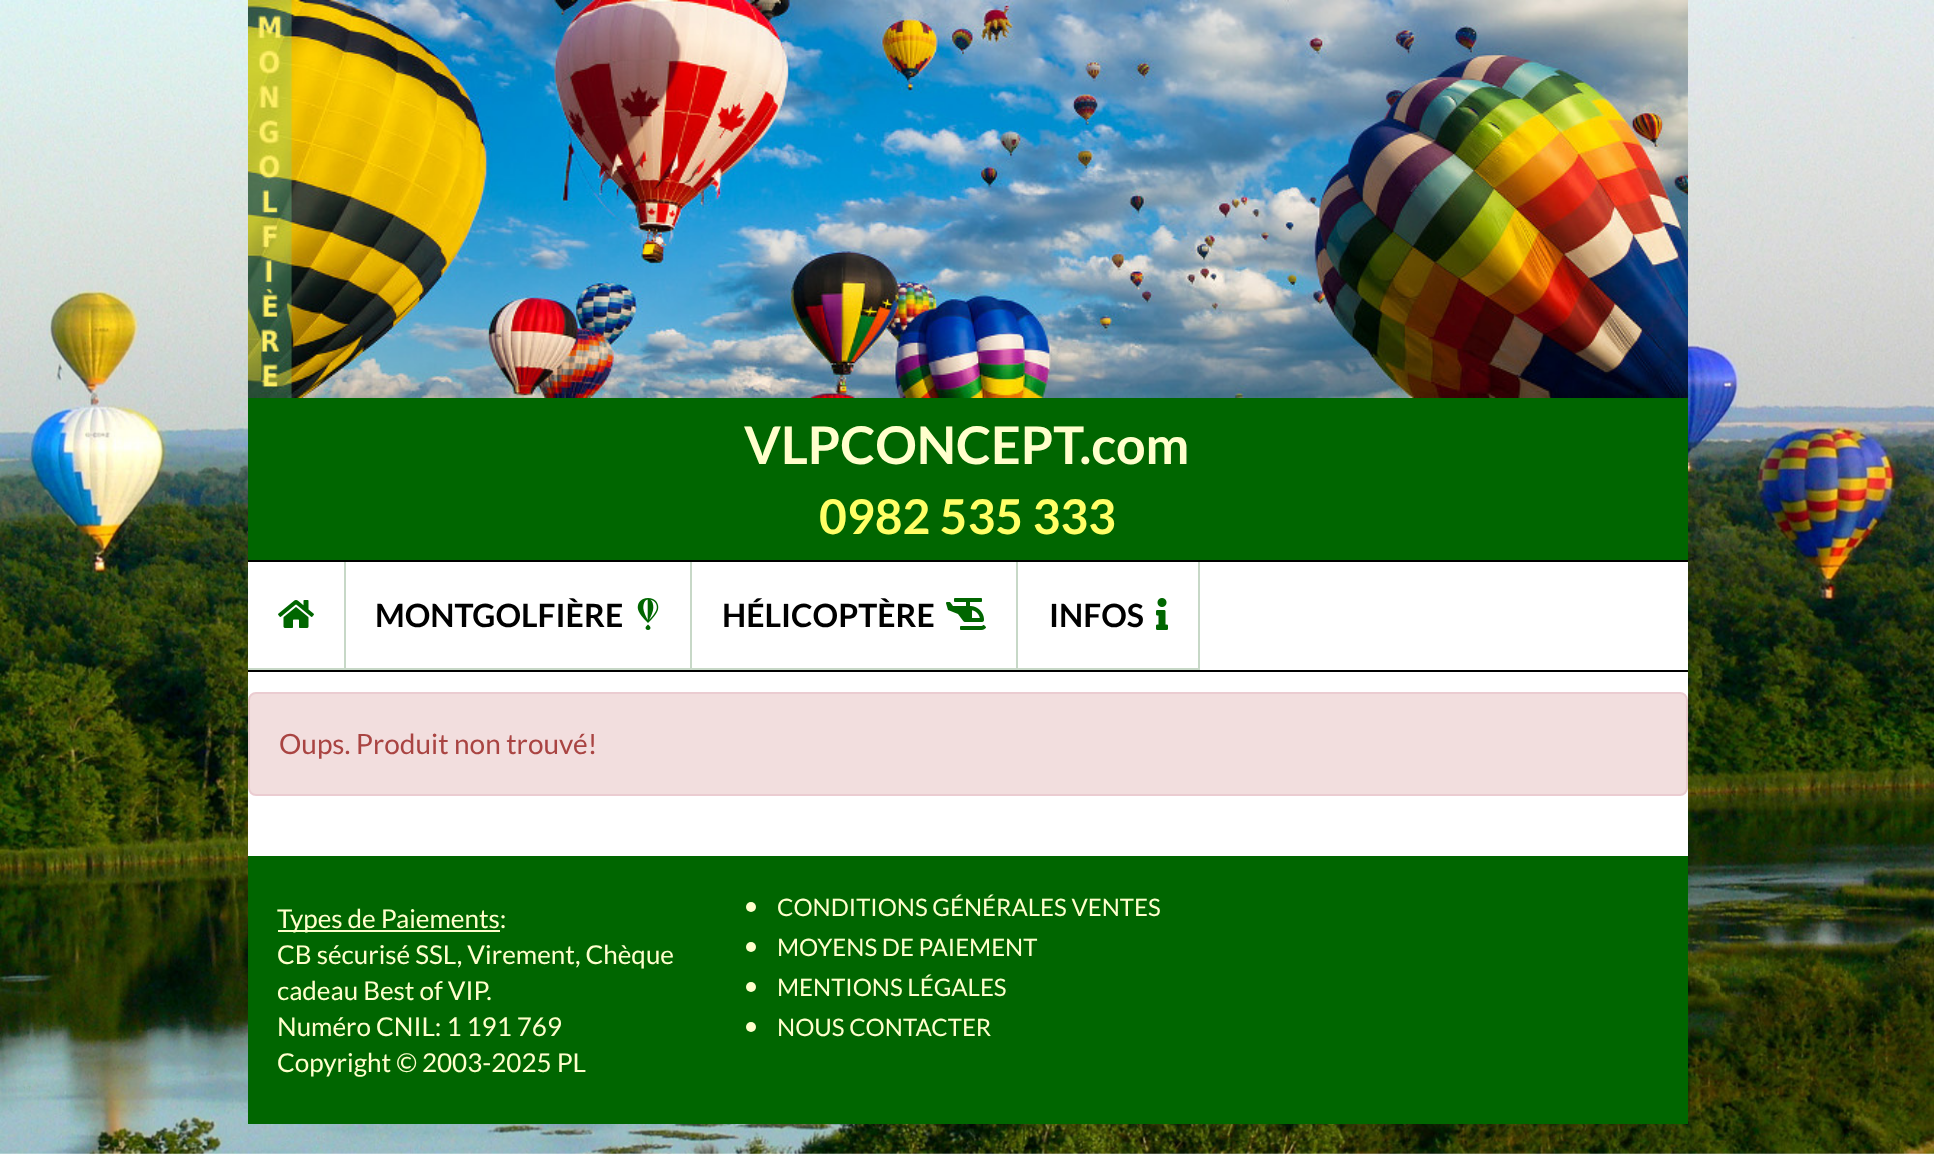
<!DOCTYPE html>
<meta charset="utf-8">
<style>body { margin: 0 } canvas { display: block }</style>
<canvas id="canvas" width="1934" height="1154"></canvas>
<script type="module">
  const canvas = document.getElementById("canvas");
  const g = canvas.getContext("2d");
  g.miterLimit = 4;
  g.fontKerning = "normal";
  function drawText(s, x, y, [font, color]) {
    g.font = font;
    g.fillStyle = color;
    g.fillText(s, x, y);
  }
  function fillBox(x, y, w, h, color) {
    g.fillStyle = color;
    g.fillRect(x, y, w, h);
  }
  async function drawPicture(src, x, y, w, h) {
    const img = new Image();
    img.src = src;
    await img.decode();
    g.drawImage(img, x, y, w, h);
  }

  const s1 = ["bold 52px Lato", "#FFFFCC"];
  const s2 = ["bold 48px Lato", "#FFFF66"];
  const s3 = ["bold 32px Lato", "#000000"];
  const s4 = ["28px Lato", "#A94442"];
  const s5 = ["26px Lato", "#FFFFCC"];
  const s6 = ["24px Lato", "#FFFFCC"];

  fillBox(0, 0, 1934, 1154, "#FFFFFF");
  await drawPicture("pic1.png", 0, 0, 1934, 1154);
  fillBox(248, 562, 1440, 294, "#FFFFFF");
  fillBox(248, 398, 1440, 162, "#006600");
  await drawPicture("pic2.png", 248, 0, 1440, 398);
  drawText("VLPCONCEPT.com", 744, 464, s1);
  drawText("0982 535 333", 819, 534, s2);
  fillBox(248, 560, 1440, 2, "#000000");
  fillBox(248, 670, 1440, 2, "#000000");
  fillBox(344, 562, 2, 108, "#C7D8C7");
  fillBox(248, 668, 98, 2, "#C7D8C7");
  await drawPicture("pic3.png", 278, 600, 36, 28);
  fillBox(690, 562, 2, 108, "#C7D8C7");
  fillBox(346, 668, 346, 2, "#C7D8C7");
  drawText("MONTGOLFIÈRE", 375, 627, s3);
  await drawPicture("pic4.png", 637, 598, 22, 32);
  fillBox(1016, 562, 2, 108, "#C7D8C7");
  fillBox(692, 668, 326, 2, "#C7D8C7");
  drawText("HÉLICOPTÈRE", 722, 627, s3);
  await drawPicture("pic5.png", 946, 598, 40, 32);
  fillBox(1198, 562, 2, 108, "#C7D8C7");
  fillBox(1018, 668, 182, 2, "#C7D8C7");
  drawText("INFOS", 1049, 627, s3);
  await drawPicture("pic6.png", 1156, 598, 12, 32);
  g.fillStyle = "#F2DEDE";
  g.beginPath();
  g.roundRect(249, 693, 1438, 102, 7);
  g.fill();
  g.strokeStyle = "#EBCCD1";
  g.lineWidth = 2;
  g.stroke();
  drawText("Oups. Produit non trouvé!", 279, 754, s4);
  fillBox(248, 856, 1440, 268, "#006600");
  fillBox(278, 930, 222, 2, "#FFFFCC");
  drawText("Types de Paiements:", 277, 928, s5);
  drawText("CB sécurisé SSL, Virement, Chèque", 277, 964, s5);
  drawText("cadeau Best of VIP.", 277, 1000, s5);
  drawText("Numéro CNIL: 1 191 769", 277, 1036, s5);
  drawText("Copyright © 2003-2025 PL", 277, 1072, s5);
  g.beginPath();
  g.arc(751, 907, 5, 0, Math.PI * 2);
  g.fill();
  drawText("CONDITIONS GÉNÉRALES VENTES", 777, 916, s6);
  g.beginPath();
  g.arc(751, 947, 5, 0, Math.PI * 2);
  g.fill();
  drawText("MOYENS DE PAIEMENT", 777, 956, s6);
  g.beginPath();
  g.arc(751, 987, 5, 0, Math.PI * 2);
  g.fill();
  drawText("MENTIONS LÉGALES", 777, 996, s6);
  g.beginPath();
  g.arc(751, 1027, 5, 0, Math.PI * 2);
  g.fill();
  drawText("NOUS CONTACTER", 777, 1036, s6);
</script>
